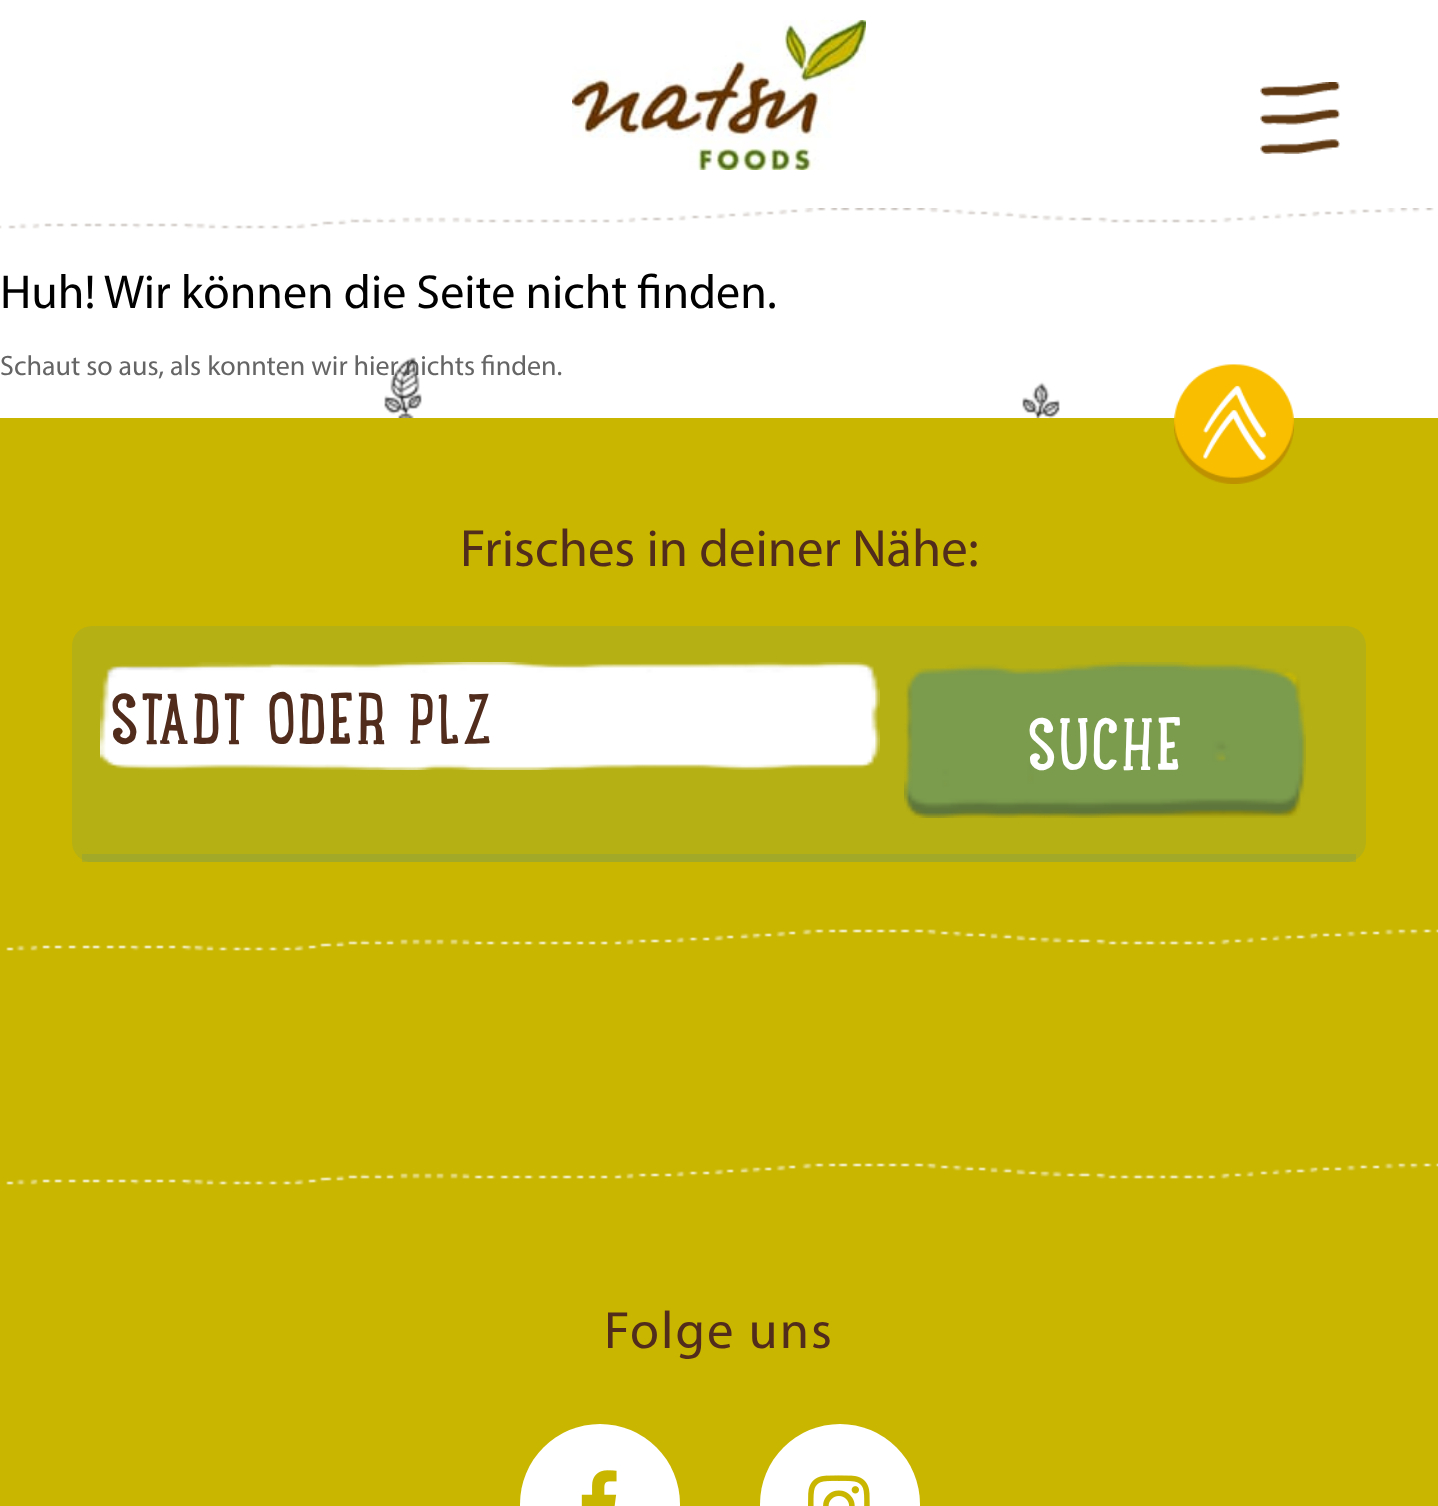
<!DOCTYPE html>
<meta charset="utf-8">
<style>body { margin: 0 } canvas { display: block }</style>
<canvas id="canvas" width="1438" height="1506"></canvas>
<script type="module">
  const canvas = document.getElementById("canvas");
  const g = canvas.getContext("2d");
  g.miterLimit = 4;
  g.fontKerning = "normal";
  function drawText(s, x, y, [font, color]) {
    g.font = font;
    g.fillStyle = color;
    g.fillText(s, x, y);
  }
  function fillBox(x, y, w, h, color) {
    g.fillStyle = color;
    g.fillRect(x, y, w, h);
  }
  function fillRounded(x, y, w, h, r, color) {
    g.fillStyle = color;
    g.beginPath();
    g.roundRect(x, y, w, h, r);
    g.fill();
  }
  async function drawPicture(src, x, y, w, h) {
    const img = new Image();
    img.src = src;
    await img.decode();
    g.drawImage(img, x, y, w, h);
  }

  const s1 = ["48px Myriad", "#000000"];
  const s2 = ["28px Myriad", "#656565"];
  const s3 = ["52.75px Myriad", "#512C1D"];
  const s4 = ["70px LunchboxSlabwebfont", "#512C1D"];
  const s5 = ["72px LunchboxSlabwebfont", "#FFFFFF"];

  fillBox(0, 0, 1438, 1506, "#FFFFFF");
  await drawPicture("pic1.png", 0, 208, 1434, 21);
  await drawPicture("pic2.png", 572, 20, 294, 150);
  await drawPicture("pic3.png", 1260, 82, 80, 72);
  drawText("Huh! Wir können die Seite nicht finden.", 0, 308, s1);
  drawText("Schaut so aus, als konnten wir hier nichts finden.", 0, 375, s2);
  fillBox(0, 418, 1438, 1088, "#C9B600");
  await drawPicture("pic4.png", 384, 357, 676, 61);
  await drawPicture("pic5.png", 1174, 364, 120, 120);
  await drawPicture("pic6.png", 6, 928, 1432, 23);
  drawText("Frisches in deiner Nähe:", 460, 566, s3);
  fillRounded(72, 626, 1294, 236, 20, "#B5B014");
  fillBox(82, 854, 1274, 8, "rgba(125, 157, 80, 0.35)");
  await drawPicture("pic7.png", 100, 662, 780, 108);
  g.letterSpacing = "2px";
  drawText("STADT ODER PLZ", 110, 744, s4);
  await drawPicture("pic8.png", 904, 662, 402, 156);
  drawText("SUCHE", 1027, 770, s5);
  await drawPicture("pic6.png", 6, 1162, 1432, 23);
  drawText("Folge uns", 604, 1348, s3);
  g.fillStyle = "#FFFFFF";
  g.beginPath();
  g.arc(600, 1504, 80, 0, Math.PI * 2);
  g.fill();
  await drawPicture("pic9.png", 581, 1470, 36, 36);
  g.beginPath();
  g.arc(840, 1504, 80, 0, Math.PI * 2);
  g.fill();
  await drawPicture("pic10.png", 808, 1475, 62, 31);
</script>
